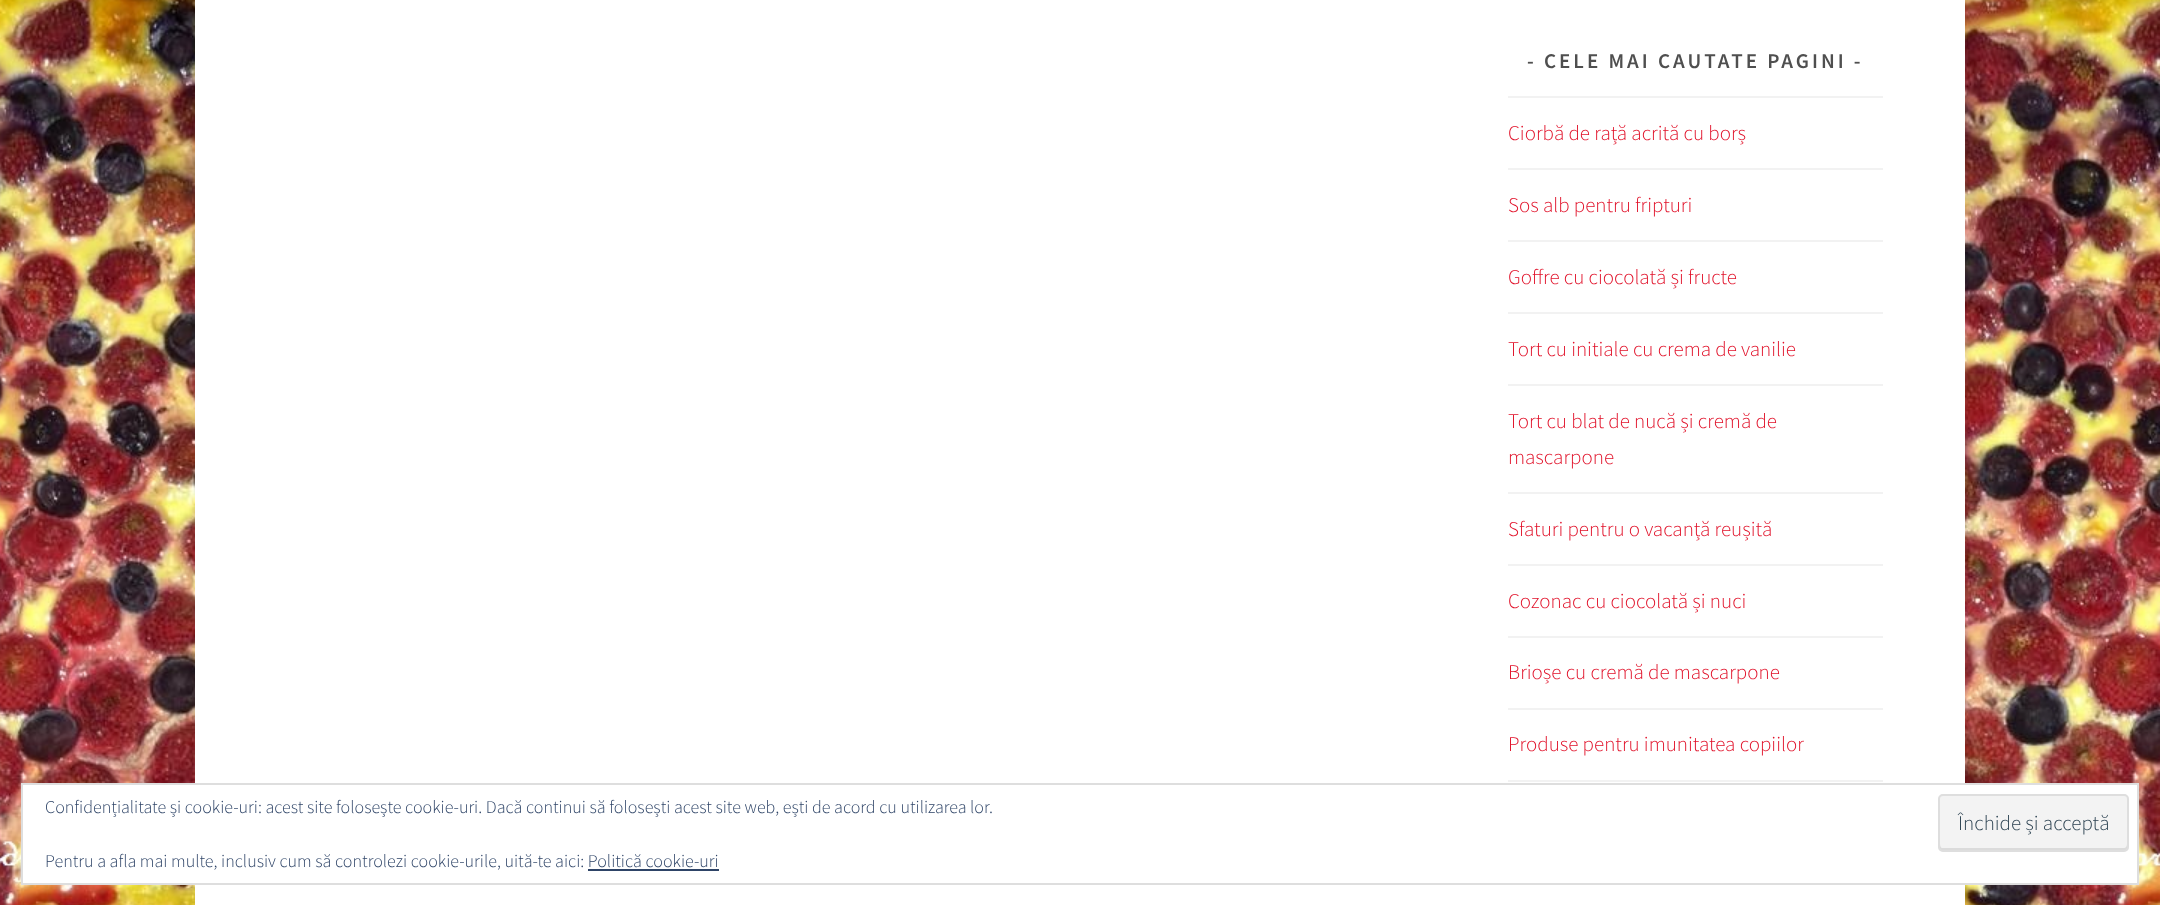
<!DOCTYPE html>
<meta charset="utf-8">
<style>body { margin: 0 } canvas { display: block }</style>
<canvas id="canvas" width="2160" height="905"></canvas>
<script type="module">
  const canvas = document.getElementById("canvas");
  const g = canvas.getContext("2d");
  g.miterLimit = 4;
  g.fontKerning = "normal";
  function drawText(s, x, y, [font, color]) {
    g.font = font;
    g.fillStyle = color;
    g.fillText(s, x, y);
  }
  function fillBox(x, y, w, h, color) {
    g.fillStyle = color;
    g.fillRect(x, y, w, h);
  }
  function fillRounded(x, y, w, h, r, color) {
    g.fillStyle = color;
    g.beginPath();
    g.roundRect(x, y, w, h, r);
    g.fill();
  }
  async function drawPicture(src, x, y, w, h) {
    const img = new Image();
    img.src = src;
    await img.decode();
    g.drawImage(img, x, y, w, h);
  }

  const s1 = ["600 21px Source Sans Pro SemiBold", "#4F4F4F"];
  const s2 = ["300 21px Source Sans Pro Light", "#E1122A"];
  const s3 = ["300 18px Source Sans Pro Light", "#2E4467"];
  const s4 = ["300 21px Source Sans Pro Light", "#2E4453"];

  fillBox(0, 0, 2160, 905, "#FFFFFF");
  await drawPicture("pic1.png", 0, 0, 2160, 905);
  fillBox(195, 0, 1770, 905, "#FFFFFF");
  g.letterSpacing = "3px";
  drawText("- CELE MAI CAUTATE PAGINI -", 1527, 68, s1);
  fillBox(1508, 96, 375, 2, "#F2F2F2");
  g.letterSpacing = "0px";
  drawText("Ciorbă de rață acrită cu borș", 1508, 140, s2);
  fillBox(1508, 168, 375, 2, "#F2F2F2");
  drawText("Sos alb pentru fripturi", 1508, 212, s2);
  fillBox(1508, 240, 375, 2, "#F2F2F2");
  drawText("Goffre cu ciocolată și fructe", 1508, 284, s2);
  fillBox(1508, 312, 375, 2, "#F2F2F2");
  drawText("Tort cu initiale cu crema de vanilie", 1508, 356, s2);
  fillBox(1508, 384, 375, 2, "#F2F2F2");
  drawText("Tort cu blat de nucă și cremă de", 1508, 428, s2);
  drawText("mascarpone", 1508, 464, s2);
  fillBox(1508, 492, 375, 2, "#F2F2F2");
  drawText("Sfaturi pentru o vacanță reușită", 1508, 536, s2);
  fillBox(1508, 564, 375, 2, "#F2F2F2");
  drawText("Cozonac cu ciocolată și nuci", 1508, 608, s2);
  fillBox(1508, 636, 375, 2, "#F2F2F2");
  drawText("Brioșe cu cremă de mascarpone", 1508, 679, s2);
  fillBox(1508, 708, 375, 2, "#F2F2F2");
  drawText("Produse pentru imunitatea copiilor", 1508, 751, s2);
  fillBox(1508, 780, 375, 2, "#F2F2F2");
  g.fillStyle = "#FFFFFF";
  g.beginPath();
  g.rect(22, 784, 2116, 100);
  g.fill();
  g.strokeStyle = "#DEDEDE";
  g.lineWidth = 2;
  g.stroke();
  drawText("Confidențialitate și cookie-uri: acest site folosește cookie-uri. Dacă continui să folosești acest site web, ești de acord cu utilizarea lor.", 45, 813, s3);
  fillRounded(1938, 794, 191, 58, 5, "#F3F3F3");
  g.fillStyle = "#DBDBDB";
  g.beginPath();
  g.moveTo(1940, 844);
  g.lineTo(1940, 848);
  g.bezierCurveTo(1940, 850, 1941, 851, 1943, 851);
  g.lineTo(2124, 851);
  g.bezierCurveTo(2126, 851, 2127, 850, 2127, 848);
  g.lineTo(2127, 844);
  g.bezierCurveTo(2127, 846, 2126, 848, 2124, 848);
  g.lineTo(1942, 848);
  g.bezierCurveTo(1941, 848, 1940, 846, 1940, 844);
  g.closePath();
  g.fill();
  g.beginPath();
  g.roundRect(1939, 795, 189, 56, 4);
  g.stroke();
  drawText("Închide și acceptă", 1958, 830, s4);
  drawText("Pentru a afla mai multe, inclusiv cum să controlezi cookie-urile, uită-te aici: Politică cookie-uri", 45, 867, s3);
  fillBox(588, 869, 131, 2, "#2E4467");
</script>
